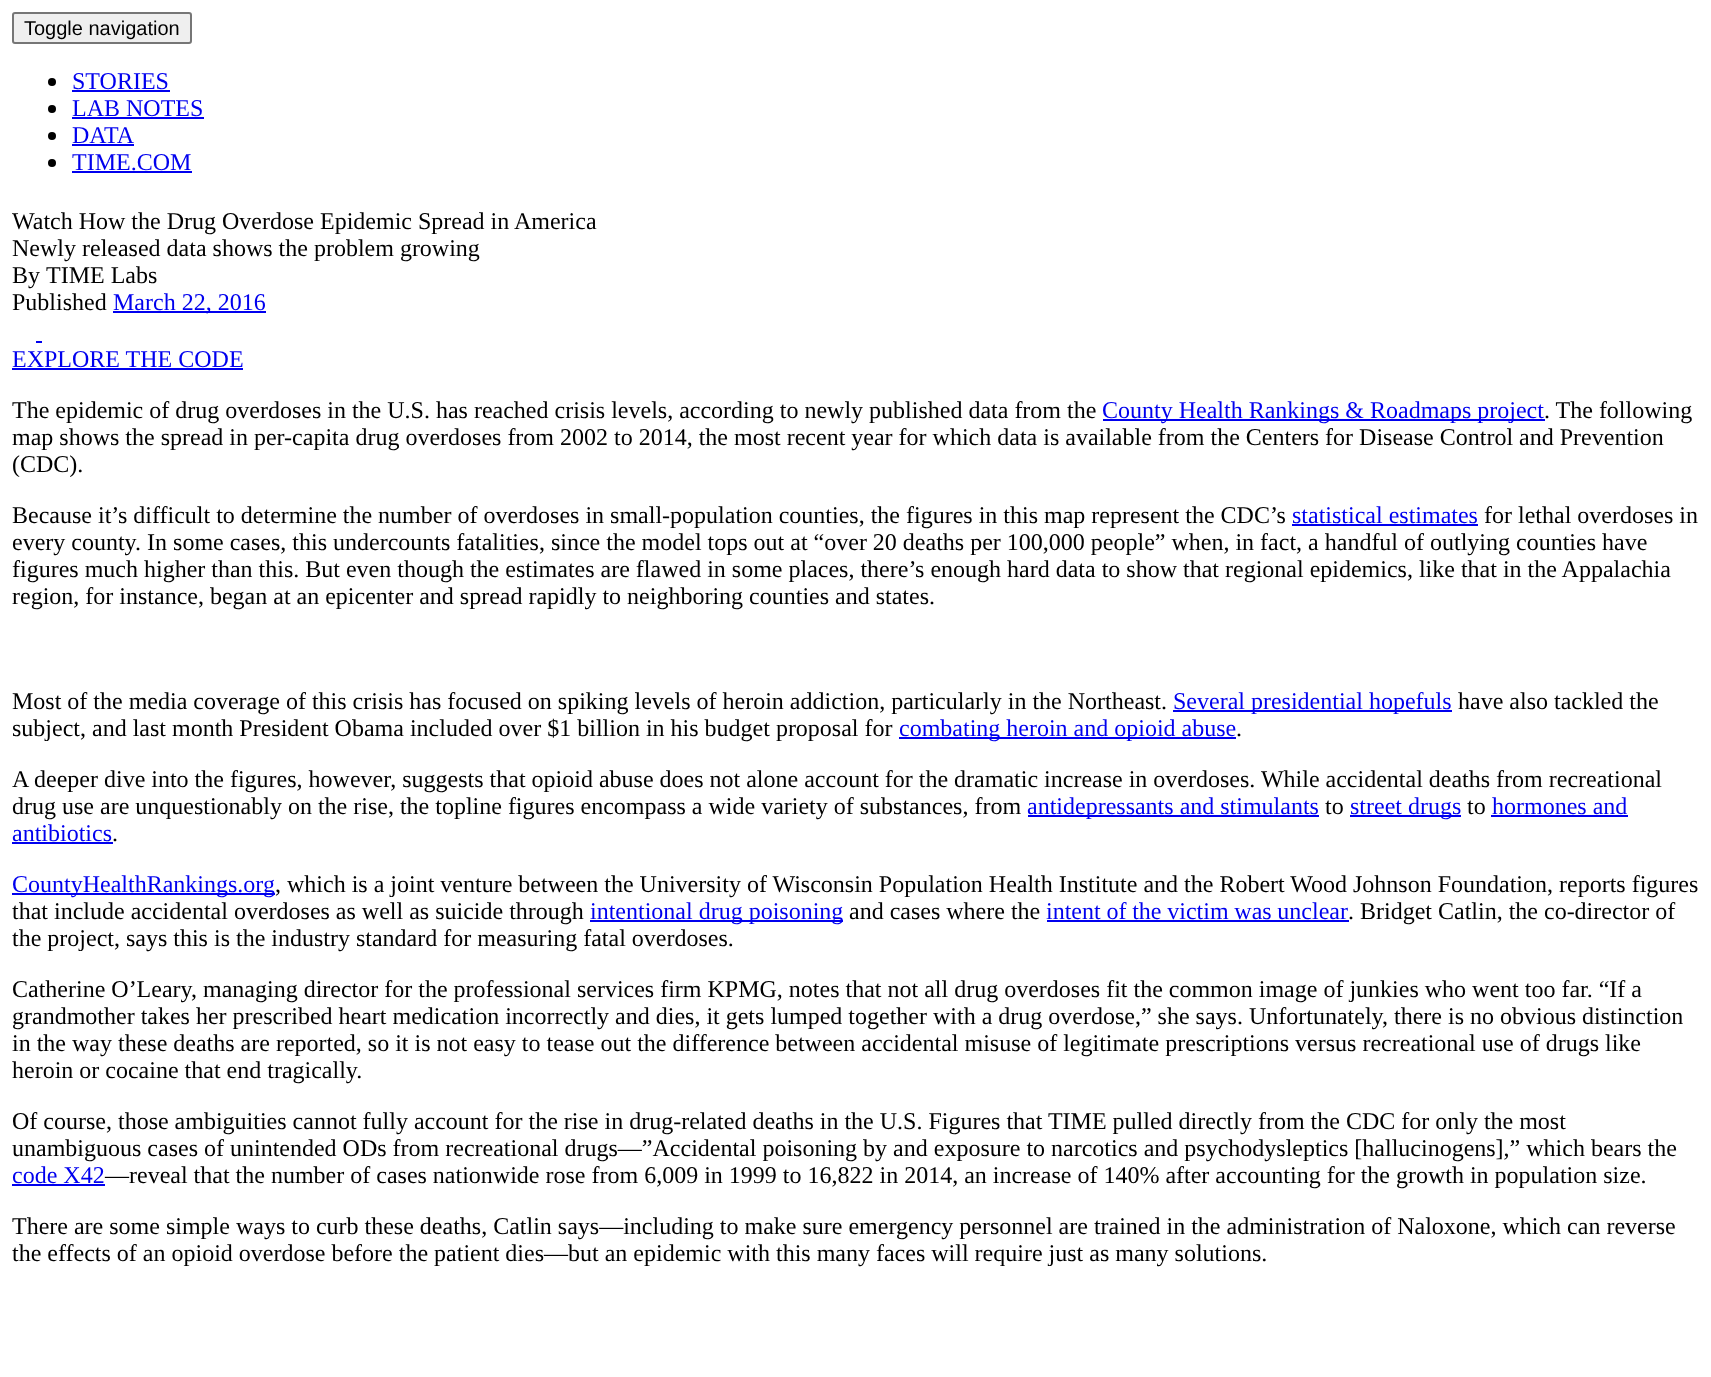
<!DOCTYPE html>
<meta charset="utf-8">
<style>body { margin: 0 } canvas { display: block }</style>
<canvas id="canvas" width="1711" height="1377"></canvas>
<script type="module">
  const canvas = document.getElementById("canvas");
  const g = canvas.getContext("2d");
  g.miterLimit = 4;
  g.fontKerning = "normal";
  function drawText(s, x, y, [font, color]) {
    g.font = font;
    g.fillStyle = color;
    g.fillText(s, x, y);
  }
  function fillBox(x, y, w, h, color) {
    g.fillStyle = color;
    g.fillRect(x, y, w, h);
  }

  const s1 = ["20px Liberation Sans", "#000000"];
  const s2 = ["24px Liberation Serif", "#0000EE"];
  const s3 = ["24px Liberation Serif", "#000000"];

  fillBox(0, 0, 1711, 1377, "#FFFFFF");
  g.fillStyle = "#EFEFEF";
  g.beginPath();
  g.roundRect(13, 13, 178, 30, 2);
  g.fill();
  g.strokeStyle = "#767676";
  g.lineWidth = 2;
  g.stroke();
  drawText("Toggle navigation", 24, 35, s1);
  g.beginPath();
  g.arc(52, 82, 4, 0, Math.PI * 2);
  g.fill();
  drawText("STORIES", 72, 89, s2);
  fillBox(72, 90, 98, 2, "#0000EE");
  g.fillStyle = "#000000";
  g.beginPath();
  g.arc(52, 109, 4, 0, Math.PI * 2);
  g.fill();
  drawText("LAB NOTES", 72, 116, s2);
  fillBox(72, 117, 132, 2, "#0000EE");
  g.fillStyle = "#000000";
  g.beginPath();
  g.arc(52, 136, 4, 0, Math.PI * 2);
  g.fill();
  drawText("DATA", 72, 143, s2);
  fillBox(72, 144, 62, 2, "#0000EE");
  g.fillStyle = "#000000";
  g.beginPath();
  g.arc(52, 163, 4, 0, Math.PI * 2);
  g.fill();
  drawText("TIME.COM", 72, 170, s2);
  fillBox(72, 171, 120, 2, "#0000EE");
  drawText("Watch How the Drug Overdose Epidemic Spread in America", 12, 229, s3);
  drawText("Newly released data shows the problem growing", 12, 256, s3);
  drawText("By", 12, 283, s3);
  drawText("TIME Labs", 46, 283, s3);
  drawText("Published", 12, 310, s3);
  fillBox(113, 311, 153, 2, "#0000EE");
  drawText("March 22, 2016", 113, 310, s2);
  fillBox(36, 341, 6, 2, "#0000EE");
  drawText("EXPLORE THE CODE", 12, 367, s2);
  fillBox(12, 368, 231, 2, "#0000EE");
  drawText("The epidemic of drug overdoses in the U.S. has reached crisis levels, according to newly published data from the", 12, 418, s3);
  fillBox(1103, 419, 442, 2, "#0000EE");
  drawText("County Health Rankings & Roadmaps project", 1102, 418, s2);
  drawText(". The following", 1544, 418, s3);
  drawText("map shows the spread in per-capita drug overdoses from 2002 to 2014, the most recent year for which data is available from the Centers for Disease Control and Prevention", 12, 445, s3);
  drawText("(CDC).", 12, 472, s3);
  drawText("Because it’s difficult to determine the number of overdoses in small-population counties, the figures in this map represent the CDC’s", 12, 523, s3);
  drawText("statistical estimates", 1292, 523, s2);
  fillBox(1292, 524, 186, 2, "#0000EE");
  drawText("for lethal overdoses in", 1484, 523, s3);
  drawText("every county. In some cases, this undercounts fatalities, since the model tops out at “over 20 deaths per 100,000 people” when, in fact, a handful of outlying counties have", 12, 550, s3);
  drawText("figures much higher than this. But even though the estimates are flawed in some places, there’s enough hard data to show that regional epidemics, like that in the Appalachia", 12, 577, s3);
  drawText("region, for instance, began at an epicenter and spread rapidly to neighboring counties and states.", 12, 604, s3);
  drawText("Most of the media coverage of this crisis has focused on spiking levels of heroin addiction, particularly in the Northeast.", 12, 709, s3);
  fillBox(1173, 710, 279, 2, "#0000EE");
  drawText("Several presidential hopefuls", 1173, 709, s2);
  drawText("have also tackled the", 1458, 709, s3);
  drawText("subject, and last month President Obama included over $1 billion in his budget proposal for", 12, 736, s3);
  fillBox(899, 737, 337, 2, "#0000EE");
  drawText("combating heroin and opioid abuse", 899, 736, s2);
  drawText(".", 1236, 736, s3);
  drawText("A deeper dive into the figures, however, suggests that opioid abuse does not alone account for the dramatic increase in overdoses. While accidental deaths from recreational", 12, 787, s3);
  drawText("drug use are unquestionably on the rise, the topline figures encompass a wide variety of substances, from", 12, 814, s3);
  fillBox(1028, 815, 291, 2, "#0000EE");
  drawText("antidepressants and stimulants", 1027, 814, s2);
  drawText("to", 1325, 814, s3);
  fillBox(1350, 815, 111, 2, "#0000EE");
  drawText("street drugs", 1350, 814, s2);
  drawText("to", 1467, 814, s3);
  drawText("hormones and", 1492, 814, s2);
  fillBox(1491, 815, 137, 2, "#0000EE");
  drawText("antibiotics", 12, 841, s2);
  fillBox(12, 842, 101, 2, "#0000EE");
  drawText(".", 112, 841, s3);
  fillBox(12, 893, 263, 2, "#0000EE");
  drawText("CountyHealthRankings.org", 12, 892, s2);
  drawText(", which is a joint venture between the University of Wisconsin Population Health Institute and the Robert Wood Johnson Foundation, reports figures", 275, 892, s3);
  drawText("that include accidental overdoses as well as suicide through", 12, 919, s3);
  fillBox(590, 920, 253, 2, "#0000EE");
  drawText("intentional drug poisoning", 590, 919, s2);
  drawText("and cases where the", 849, 919, s3);
  g.wordSpacing = "-0.25px";
  drawText("intent of the victim was unclear", 1046, 919, s2);
  fillBox(1047, 920, 302, 2, "#0000EE");
  g.wordSpacing = "0px";
  drawText(". Bridget Catlin, the co-director of", 1348, 919, s3);
  drawText("the project, says this is the industry standard for measuring fatal overdoses.", 12, 946, s3);
  drawText("Catherine O’Leary, managing director for the professional services firm KPMG, notes that not all drug overdoses fit the common image of junkies who went too far. “If a", 12, 997, s3);
  drawText("grandmother takes her prescribed heart medication incorrectly and dies, it gets lumped together with a drug overdose,” she says. Unfortunately, there is no obvious distinction", 12, 1024, s3);
  drawText("in the way these deaths are reported, so it is not easy to tease out the difference between accidental misuse of legitimate prescriptions versus recreational use of drugs like", 12, 1051, s3);
  drawText("heroin or cocaine that end tragically.", 12, 1078, s3);
  drawText("Of course, those ambiguities cannot fully account for the rise in drug-related deaths in the U.S. Figures that TIME pulled directly from the CDC for only the most", 12, 1129, s3);
  drawText("unambiguous cases of unintended ODs from recreational drugs—”Accidental poisoning by and exposure to narcotics and psychodysleptics [hallucinogens],” which bears the", 12, 1156, s3);
  drawText("code X42", 12, 1183, s2);
  fillBox(12, 1184, 93, 2, "#0000EE");
  drawText("—reveal that the number of cases nationwide rose from 6,009 in 1999 to 16,822 in 2014, an increase of 140% after accounting for the growth in population size.", 105, 1183, s3);
  drawText("There are some simple ways to curb these deaths, Catlin says—including to make sure emergency personnel are trained in the administration of Naloxone, which can reverse", 12, 1234, s3);
  drawText("the effects of an opioid overdose before the patient dies—but an epidemic with this many faces will require just as many solutions.", 12, 1261, s3);
</script>
